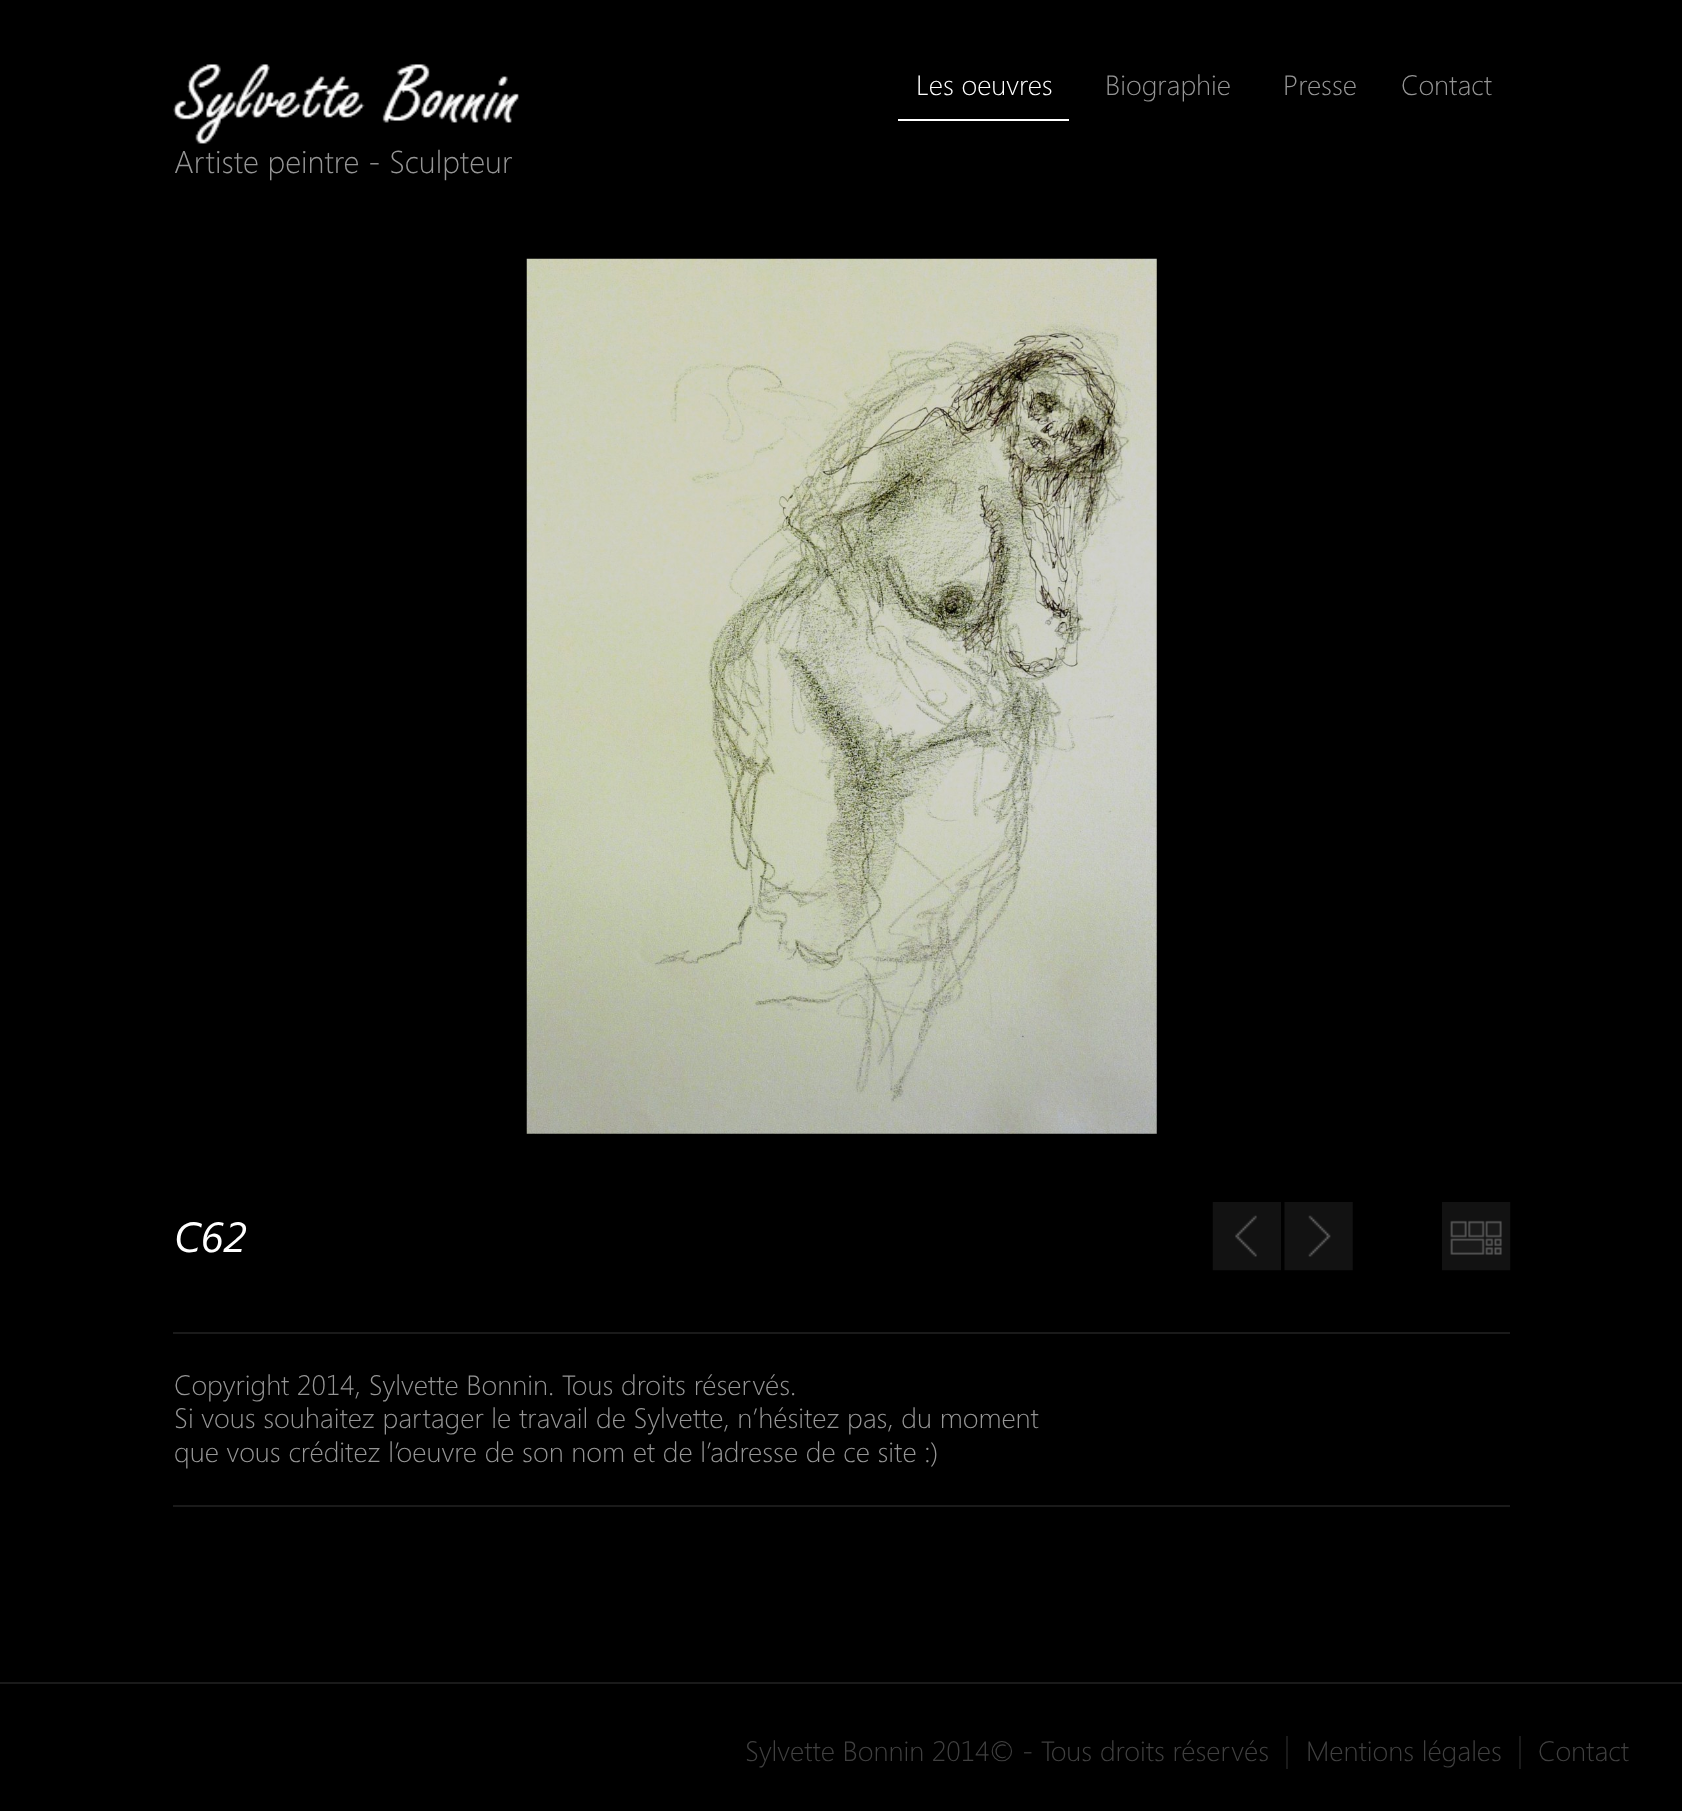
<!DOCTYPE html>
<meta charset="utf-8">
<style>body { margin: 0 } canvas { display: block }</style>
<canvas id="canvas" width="1682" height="1811"></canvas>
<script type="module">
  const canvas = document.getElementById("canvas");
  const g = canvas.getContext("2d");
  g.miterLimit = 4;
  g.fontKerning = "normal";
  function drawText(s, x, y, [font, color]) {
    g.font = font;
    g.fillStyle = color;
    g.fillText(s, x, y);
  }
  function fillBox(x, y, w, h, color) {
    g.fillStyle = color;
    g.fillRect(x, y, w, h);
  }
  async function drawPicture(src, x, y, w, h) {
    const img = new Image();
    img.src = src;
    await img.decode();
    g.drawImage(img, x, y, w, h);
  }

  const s1 = ["300 28px Segoe UI", "#FFFFFF"];
  const s2 = ["300 28px Segoe UI", "#959595"];
  const s3 = ["300 31.5px Segoe UI", "#959595"];
  const s4 = ["italic 42px Segoe UI", "#FFFFFF"];
  const s5 = ["300 28px Segoe UI", "#404040"];

  fillBox(0, 0, 1682, 1811, "#000000");
  fillBox(898, 119, 171, 2, "#FFFFFF");
  drawText("Les oeuvres", 916, 95, s1);
  drawText("Biographie", 1105, 95, s2);
  drawText("Presse", 1283, 95, s2);
  drawText("Contact", 1401, 95, s2);
  await drawPicture("pic1.png", 173, 64, 346, 80);
  drawText("Artiste peintre - Sculpteur", 174, 173, s3);
  await drawPicture("pic2.png", 526, 258, 631, 876);
  drawText("C62", 174, 1252, s4);
  await drawPicture("pic3.png", 1212, 1202, 69, 69);
  await drawPicture("pic4.png", 1284, 1202, 69, 69);
  await drawPicture("pic5.png", 1442, 1202, 69, 69);
  fillBox(173, 1332, 1337, 2, "#1A1A1A");
  fillBox(173, 1505, 1337, 2, "#1A1A1A");
  drawText("Copyright 2014, Sylvette Bonnin. Tous droits réservés.", 174, 1395, s2);
  drawText("Si vous souhaitez partager le travail de Sylvette, n’hésitez pas, du moment", 174, 1428, s2);
  drawText("que vous créditez l’oeuvre de son nom et de l’adresse de ce site :)", 174, 1462, s2);
  fillBox(0, 1682, 1682, 2, "#1A1A1A");
  drawText("Sylvette Bonnin 2014© - Tous droits réservés", 745, 1761, s5);
  fillBox(1286, 1736, 2, 33, "#1A1A1A");
  drawText("Mentions légales", 1306, 1761, s5);
  fillBox(1519, 1736, 2, 33, "#1A1A1A");
  drawText("Contact", 1538, 1761, s5);
</script>
